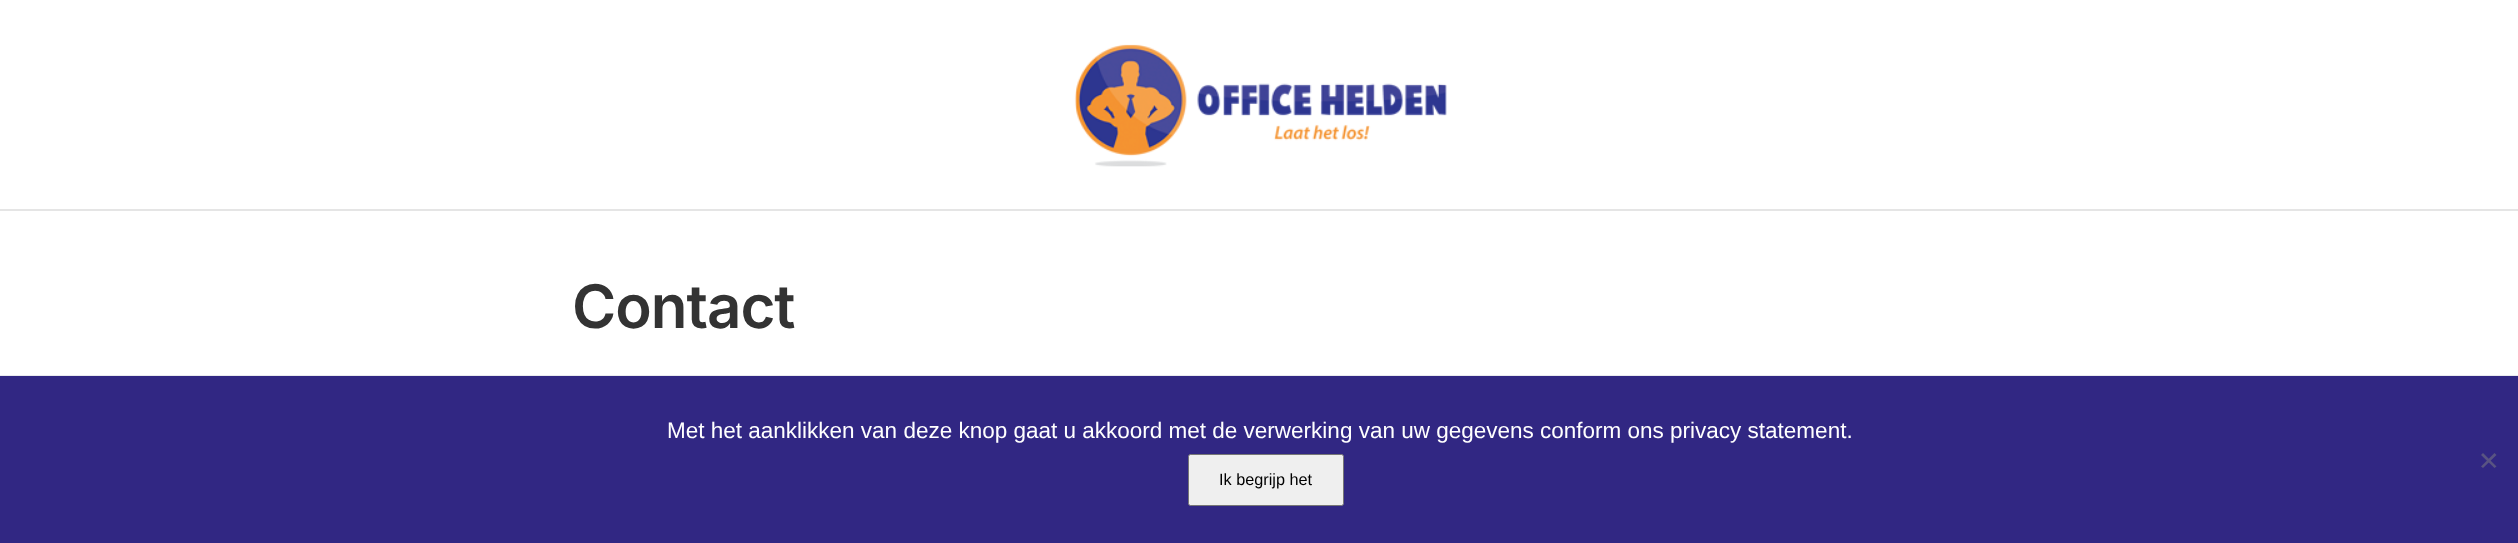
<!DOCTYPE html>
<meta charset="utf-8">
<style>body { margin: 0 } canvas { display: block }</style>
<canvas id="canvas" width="2518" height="543"></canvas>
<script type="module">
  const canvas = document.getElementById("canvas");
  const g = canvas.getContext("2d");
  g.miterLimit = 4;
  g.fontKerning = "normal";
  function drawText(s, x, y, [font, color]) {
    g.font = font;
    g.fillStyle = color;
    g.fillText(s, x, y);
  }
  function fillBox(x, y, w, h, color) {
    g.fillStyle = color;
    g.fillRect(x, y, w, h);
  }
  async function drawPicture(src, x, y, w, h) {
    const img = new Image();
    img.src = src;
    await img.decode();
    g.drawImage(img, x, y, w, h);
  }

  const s1 = ["600 60px Inter", "#333333"];
  const s2 = ["22.5px Liberation Sans", "#FFFFFF"];
  const s3 = ["16.25px Liberation Sans", "#000000"];

  fillBox(0, 0, 2518, 543, "#FFFFFF");
  await drawPicture("pic1.png", 1074, 44, 373, 123);
  fillBox(0, 209, 2518, 2, "#E5E5E5");
  g.letterSpacing = "-1px";
  drawText("Contact", 572, 328, s1);
  fillBox(0, 376, 2518, 167, "#312783");
  fillBox(0, 375, 2518, 1, "#E9EAEE");
  g.letterSpacing = "0px";
  drawText("Met het aanklikken van deze knop gaat u akkoord met de verwerking van uw gegevens conform ons privacy statement.", 667, 438, s2);
  g.fillStyle = "#595482";
  g.beginPath();
  g.moveTo(2494.5, 453);
  g.lineTo(2496.5, 455);
  g.lineTo(2483, 468);
  g.lineTo(2481, 466.5);
  g.closePath();
  g.fill();
  g.beginPath();
  g.moveTo(2481, 455);
  g.lineTo(2483, 453);
  g.lineTo(2496.5, 466.5);
  g.lineTo(2494.5, 468);
  g.closePath();
  g.fill();
  g.fillStyle = "#EFEFEF";
  g.beginPath();
  g.roundRect(1188.5, 454.5, 155, 51, 2);
  g.fill();
  g.strokeStyle = "#767676";
  g.stroke();
  drawText("Ik begrijp het", 1219, 485, s3);
</script>
